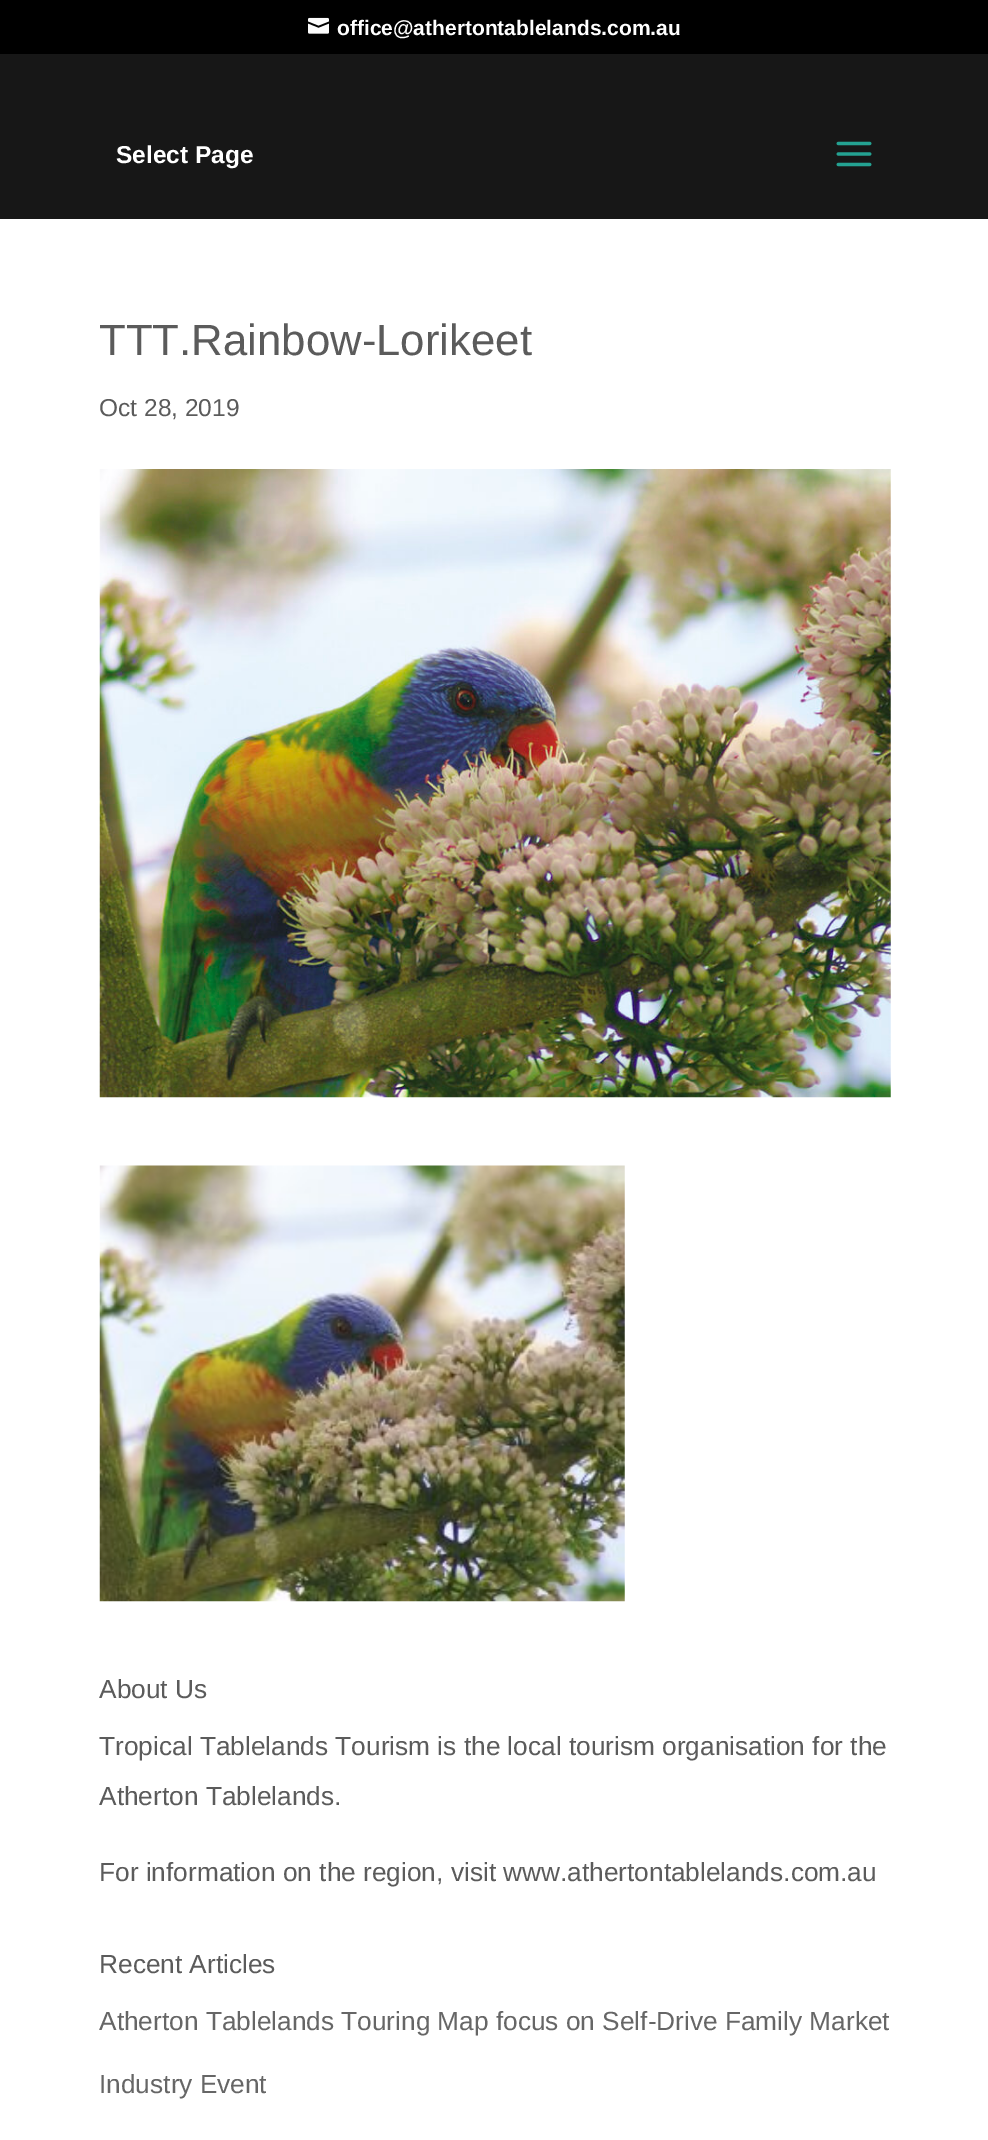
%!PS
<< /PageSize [988 2140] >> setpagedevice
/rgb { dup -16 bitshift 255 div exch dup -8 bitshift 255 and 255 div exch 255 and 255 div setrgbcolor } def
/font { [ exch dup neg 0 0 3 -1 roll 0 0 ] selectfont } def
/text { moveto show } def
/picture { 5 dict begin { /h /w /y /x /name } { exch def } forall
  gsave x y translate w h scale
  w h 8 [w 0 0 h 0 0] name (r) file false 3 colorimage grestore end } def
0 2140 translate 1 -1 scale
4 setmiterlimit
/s1 { /LiberationSans-Bold 21 font 16#FFFFFF rgb } def
/s2 { /LiberationSans-Bold 24.5 font 16#FFFFFF rgb } def
/s3 { /LiberationSans-Regular 43.75 font 16#5B5B5B rgb } def
/s4 { /LiberationSans-Regular 24.5 font 16#5B5B5B rgb } def
/s5 { /LiberationSans-Regular 26.25 font 16#5B5B5B rgb } def
/s6 { /LiberationSans-Regular 26.25 font 16#666666 rgb } def
16#FFFFFF rgb
0 0 988 2140 rectfill
16#000000 rgb
0 0 988 54 rectfill
(pic1.raw) 308 17 21 17 picture
s1
(office@athertontablelands.com.au) 337 35 text
16#171717 rgb
0 54 988 165 rectfill
s2
(Select Page) 116 163 text
(pic2.raw) 836 141 36 26 picture
s3
(TTT.Rainbow-Lorikeet) 99 355 text
s4
(Oct 28, 2019) 99 416 text
(pic3.raw) 99 469 792 629 picture
(pic4.raw) 99 1165 526 437 picture
s5
(About Us) 99 1698 text
(Tropical Tablelands Tourism is the local tourism organisation for the) 99 1755 text
(Atherton Tablelands.) 99 1805 text
(For information on the region, visit www.athertontablelands.com.au) 99 1881 text
(Recent Articles) 99 1973 text
s6
(Atherton Tablelands Touring Map focus on Self-Drive Family Market) 99 2030 text
(Industry Event) 99 2093 text
showpage
